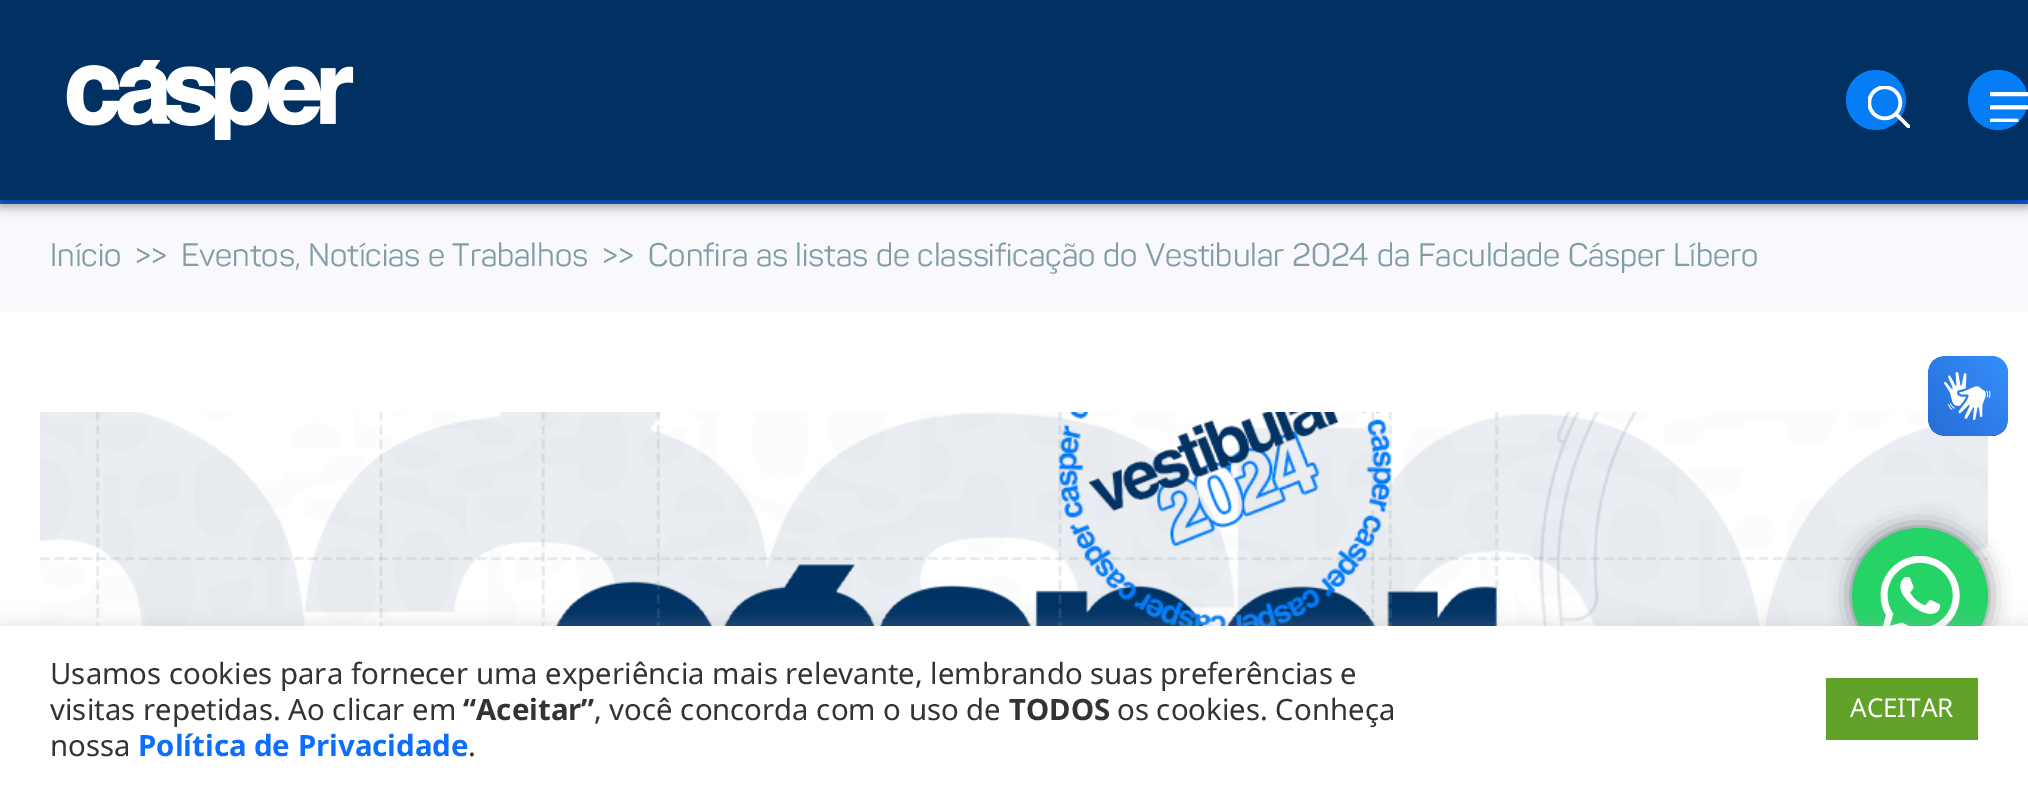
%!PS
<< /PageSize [2028 790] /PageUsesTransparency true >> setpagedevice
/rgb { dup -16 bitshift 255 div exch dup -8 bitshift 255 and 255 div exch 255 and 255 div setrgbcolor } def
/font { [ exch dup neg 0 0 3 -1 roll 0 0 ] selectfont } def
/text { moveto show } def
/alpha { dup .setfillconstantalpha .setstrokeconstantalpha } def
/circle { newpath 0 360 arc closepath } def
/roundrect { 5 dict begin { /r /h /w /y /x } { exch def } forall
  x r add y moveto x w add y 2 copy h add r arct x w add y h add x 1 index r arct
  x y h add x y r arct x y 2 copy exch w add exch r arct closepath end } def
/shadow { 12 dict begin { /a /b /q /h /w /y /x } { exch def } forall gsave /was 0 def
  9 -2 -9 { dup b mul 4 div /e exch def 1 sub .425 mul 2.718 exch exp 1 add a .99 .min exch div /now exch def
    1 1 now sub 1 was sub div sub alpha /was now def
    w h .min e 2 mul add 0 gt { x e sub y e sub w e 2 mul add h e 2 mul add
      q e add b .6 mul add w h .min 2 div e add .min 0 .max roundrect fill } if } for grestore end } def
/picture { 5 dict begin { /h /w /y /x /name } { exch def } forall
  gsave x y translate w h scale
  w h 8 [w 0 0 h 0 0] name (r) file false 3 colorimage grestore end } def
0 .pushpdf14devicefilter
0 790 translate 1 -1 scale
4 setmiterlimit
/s1 { /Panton-Regular 32 font 16#829DA6 rgb } def
/s2 { /NotoSans-Regular 29.35 font 16#333333 rgb } def
/s3 { /NotoSans-Bold 29.35 font 16#333333 rgb } def
/s4 { /NotoSans-Bold 29.35 font 16#0D6EFD rgb } def
/s5 { /NotoSans-Regular 26 font 16#FFFFFF rgb } def
16#FFFFFF rgb
0 0 2028 790 rectfill
16#0D6EFD rgb
0 200 2028 4 rectfill
16#F8F8FD rgb
0 204 2028 108 rectfill
16#000000 rgb
0 6 2028 200 0 6 0.4 shadow
16#003162 rgb
0 0 2028 200 rectfill
(pic1.raw) 66 60 288 80 picture
16#047DF6 rgb
1876 100 30 circle fill
(pic2.raw) 1868 86 42 42 picture
1998 100 30 circle fill
(pic3.raw) 1990 92 38 30 picture
s1
(Início) 50 266 text
(>>) 135 266 text
(Eventos, Notícias e Trabalhos) 181 266 text
(>>) 602 266 text
(Confira as listas de classificação do Vestibular 2024 da Faculdade Cásper Líbero) 648 266 text
(pic6.raw) 40 412 1948 214 picture
(pic4.raw) 1928 356 80 80 picture
(pic5.raw) 1928 356 80 80 picture
16#000000 rgb
1852 528 136 136 68 11 0.5 shadow
16#25D366 rgb
1920 596 68 circle fill
(pic7.raw) 1880 556 80 70 picture
16#ACABAB rgb
0 624 2028 164 0 10 0.3 shadow
16#FFFFFF rgb
0 626 2028 164 rectfill
s2
(Usamos cookies para fornecer uma experiência mais relevante, lembrando suas preferências e) 50 684 text
(visitas repetidas. Ao clicar em) 50 720 text
s3
(“Aceitar”) 463 720 text
s2
(, você concorda com o uso de) 594 720 text
s3
(TODOS) 1009 720 text
s2
(os cookies. Conheça) 1117 720 text
(nossa) 50 756 text
s4
(Política de Privacidade) 138 756 text
s2
(.) 468 756 text
16#61A229 rgb
1826 678 152 62 rectfill
s5
(ACEITAR) 1850 717 text
.poppdf14devicefilter showpage
